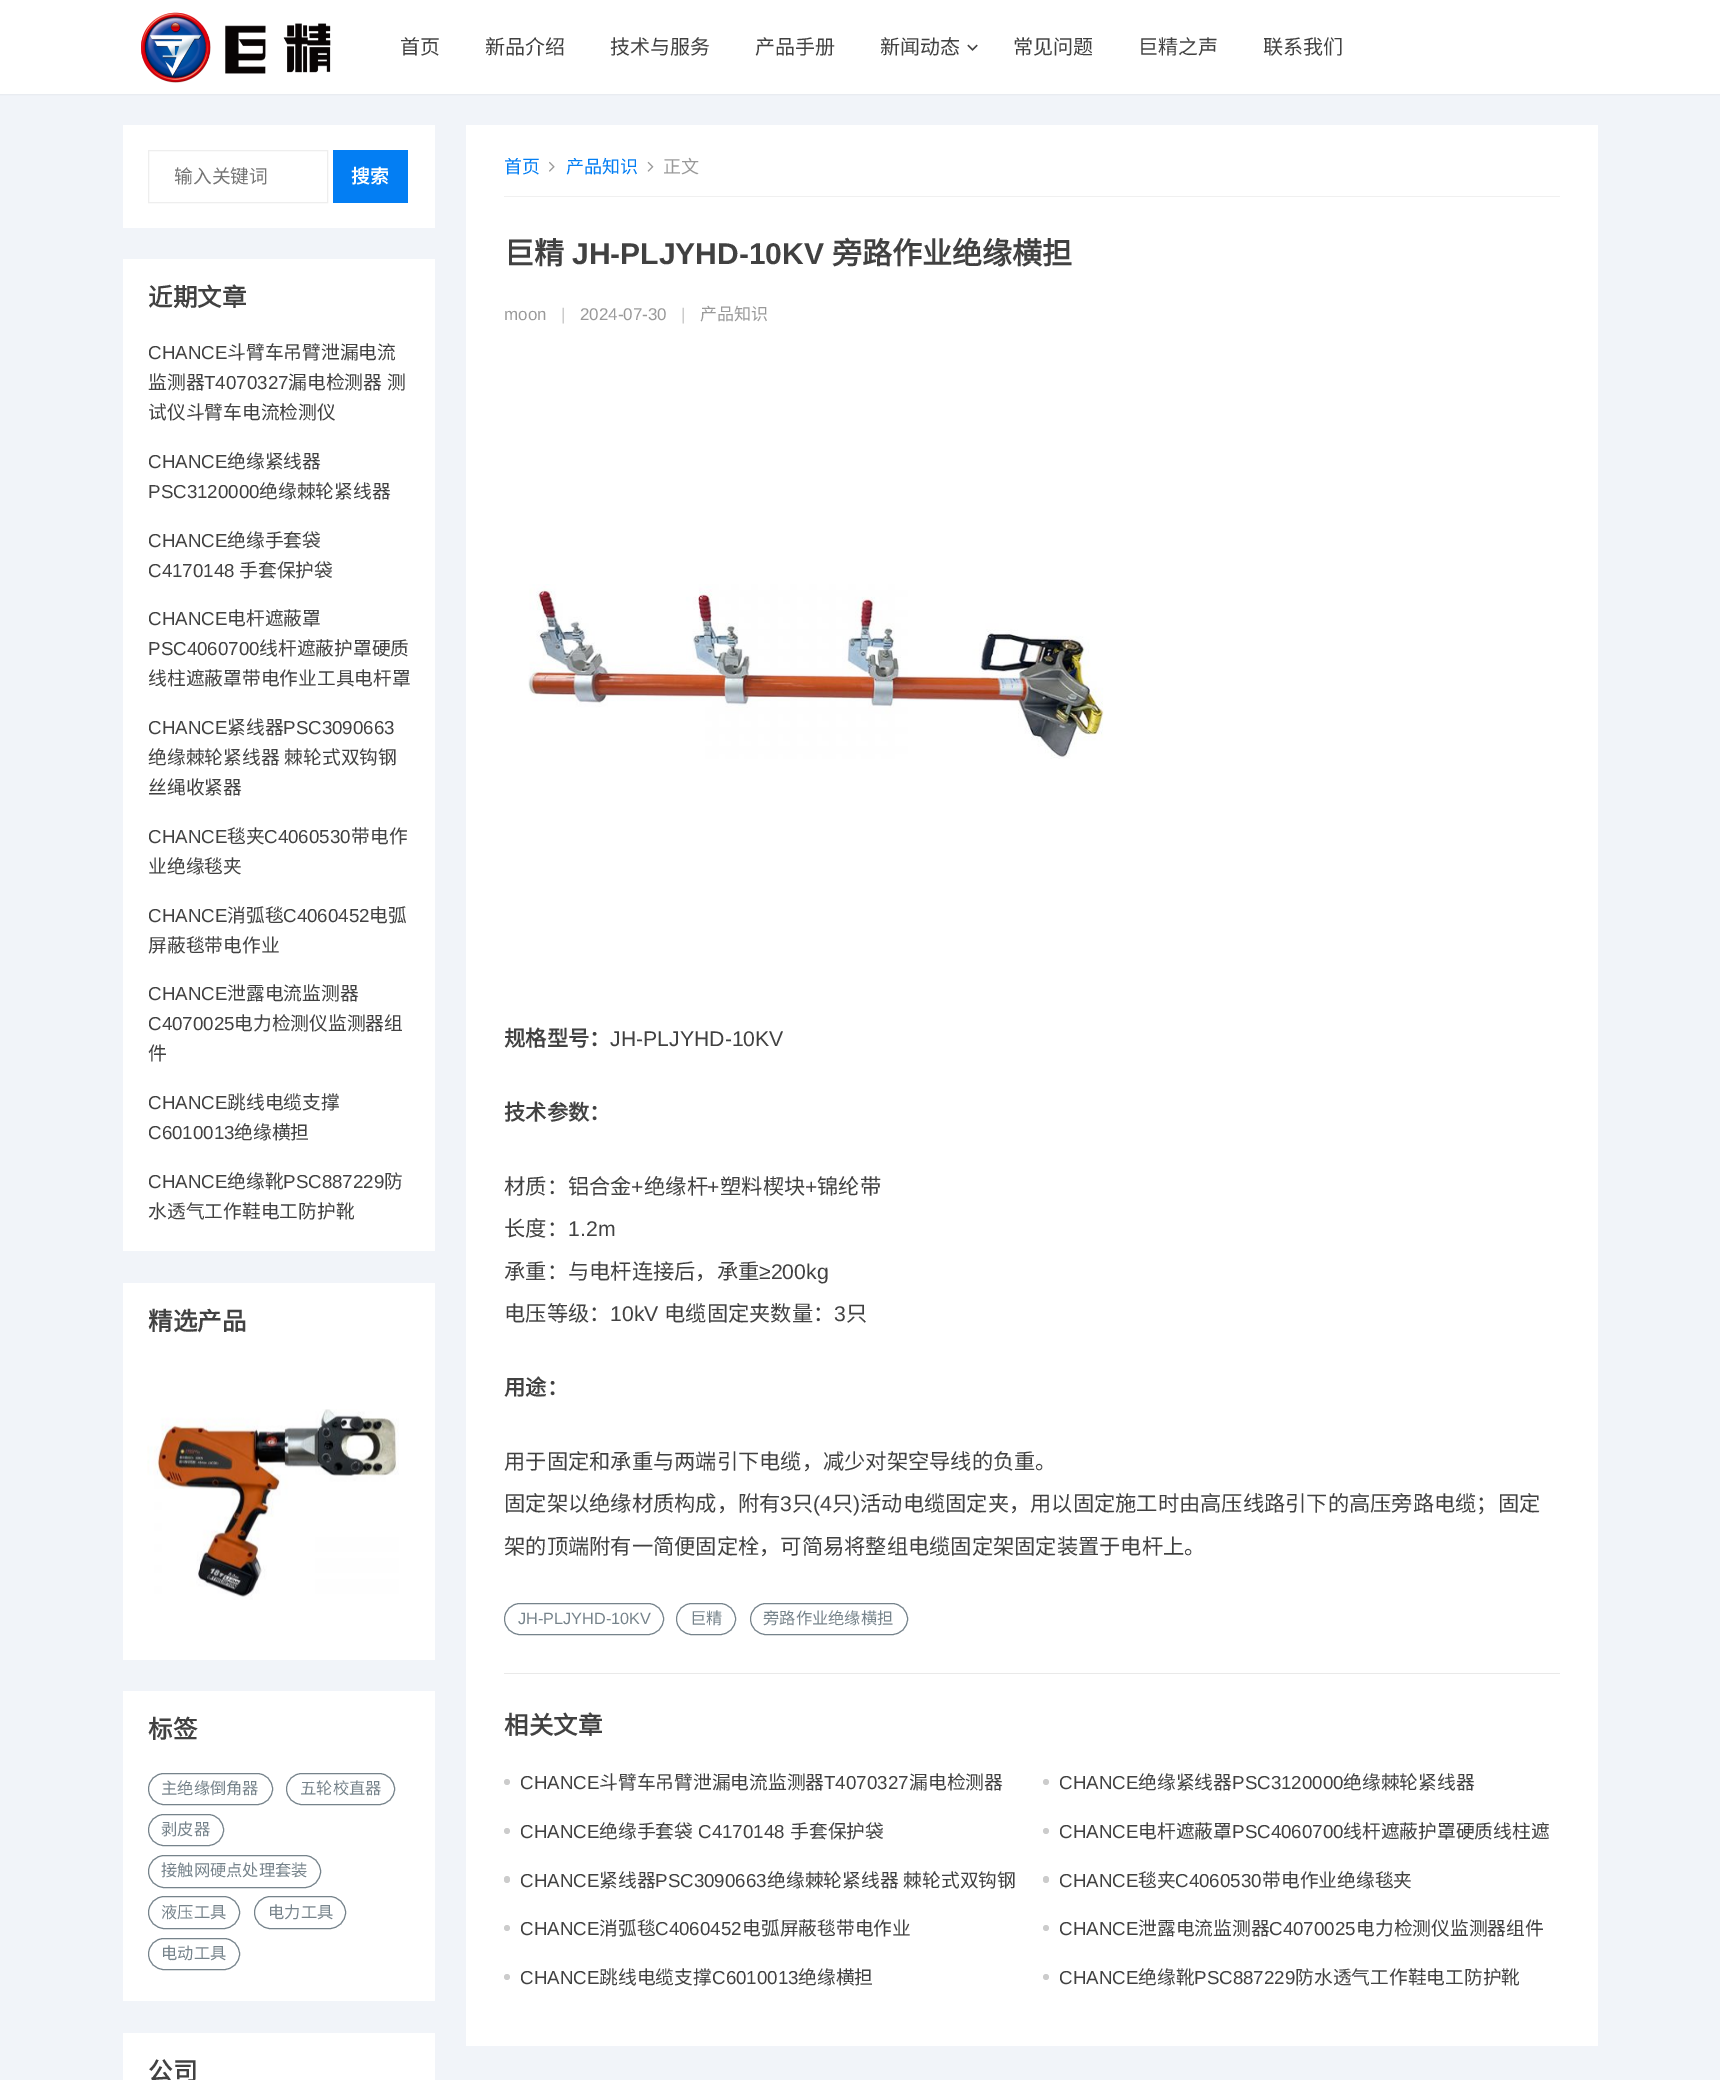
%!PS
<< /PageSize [1720 2080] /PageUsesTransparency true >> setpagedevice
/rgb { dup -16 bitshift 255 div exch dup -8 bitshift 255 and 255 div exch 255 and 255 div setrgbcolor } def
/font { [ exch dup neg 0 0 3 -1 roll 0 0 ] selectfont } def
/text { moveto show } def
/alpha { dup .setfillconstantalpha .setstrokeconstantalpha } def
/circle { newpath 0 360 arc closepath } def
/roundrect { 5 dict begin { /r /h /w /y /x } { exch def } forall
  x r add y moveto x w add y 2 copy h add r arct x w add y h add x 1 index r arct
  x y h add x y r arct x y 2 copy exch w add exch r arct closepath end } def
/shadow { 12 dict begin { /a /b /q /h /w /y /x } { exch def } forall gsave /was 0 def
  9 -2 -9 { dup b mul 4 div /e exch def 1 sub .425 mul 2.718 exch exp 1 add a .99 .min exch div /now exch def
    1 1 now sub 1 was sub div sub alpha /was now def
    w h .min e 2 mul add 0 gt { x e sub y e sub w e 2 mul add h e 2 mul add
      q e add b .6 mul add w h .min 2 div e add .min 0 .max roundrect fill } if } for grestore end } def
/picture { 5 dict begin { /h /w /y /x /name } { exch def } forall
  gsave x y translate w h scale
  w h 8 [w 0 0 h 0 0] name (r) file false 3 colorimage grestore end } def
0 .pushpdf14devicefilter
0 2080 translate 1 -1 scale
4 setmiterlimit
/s1 { /NotoSansCJKSC-Regular 20 font 16#414141 rgb } def
/s2 { /NotoSansCJKSC-Regular 18.75 font 16#757575 rgb } def
/s3 { /NotoSansCJKSC-Bold 18.75 font 16#FFFFFF rgb } def
/s4 { /NotoSansCJKSC-Bold 24.5 font 16#414141 rgb } def
/s5 { /LiberationSans-Regular 18.75 font 16#414141 rgb } def
/s6 { /NotoSansCJKSC-Regular 18.75 font 16#414141 rgb } def
/s7 { /NotoSansCJKSC-Regular 16.25 font 16#76838B rgb } def
/s8 { /NotoSansCJKSC-Regular 18 font 16#037EF3 rgb } def
/s9 { /NotoSansCJKSC-Regular 18 font 16#999999 rgb } def
/s10 { /NotoSansCJKSC-Bold 30 font 16#414141 rgb } def
/s11 { /LiberationSans-Bold 30 font 16#414141 rgb } def
/s12 { /LiberationSans-Regular 17 font 16#999999 rgb } def
/s13 { /LiberationSans-Regular 17 font 16#CCCCCC rgb } def
/s14 { /NotoSansCJKSC-Regular 17 font 16#999999 rgb } def
/s15 { /NotoSansCJKSC-Bold 21.25 font 16#414141 rgb } def
/s16 { /LiberationSans-Regular 21.25 font 16#414141 rgb } def
/s17 { /NotoSansCJKSC-Regular 21.25 font 16#414141 rgb } def
/s18 { /LiberationSans-Regular 16.25 font 16#76838B rgb } def
16#F1F4F9 rgb
0 0 1720 2080 rectfill
16#000000 rgb
0 0 1720 94 0 1 0.1 shadow
16#FFFFFF rgb
0 0 1720 94 rectfill
(pic1.raw) 141 12 190 71 picture
s1
(首页) 400 54 text
(新品介绍) 485 54 text
(技术与服务) 610 54 text
(产品手册) 755 54 text
(新闻动态) 880 54 text
(pic2.raw) 967 44 11 7 picture
(常见问题) 1013 54 text
(巨精之声) 1138 54 text
(联系我们) 1263 54 text
16#FFFFFF rgb
123 125 312 103 rectfill
16#EEEEEE rgb
148.5 150.5 179 52 rectstroke
s2
(输入关键词) 174 183 text
16#037EF3 rgb
333 150 75 53 rectfill
s3
(搜索) 351 183 text
123 259 312 992 rectfill
s4
(近期文章) 148 306 text
s5
(CHANCE) 148 359 text
s6
(斗臂车吊臂泄漏电流) 227 359 text
(监测器) 148 389 text
s5
(T4070327) 204 389 text
/NotoSansCJKSC-Regular 18.75 font
288 389 moveto 1 0 32 (漏电检测器 测) widthshow
(试仪斗臂车电流检测仪) 148 419 text
s5
(CHANCE) 148 468 text
s6
(绝缘紧线器) 227 468 text
s5
(PSC3120000) 148 498 text
s6
(绝缘棘轮紧线器) 259 498 text
s5
(CHANCE) 148 547 text
s6
(绝缘手套袋) 227 547 text
s5
(C4170148) 148 577 text
s6
(手套保护袋) 239 577 text
s5
(CHANCE) 148 625 text
s6
(电杆遮蔽罩) 227 625 text
s5
(PSC4060700) 148 655 text
s6
(线杆遮蔽护罩硬质) 259 655 text
(线柱遮蔽罩带电作业工具电杆罩) 148 685 text
s5
(CHANCE) 148 734 text
s6
(紧线器) 227 734 text
s5
(PSC3090663) 283 734 text
/NotoSansCJKSC-Regular 18.75 font
148 764 moveto 1 0 32 (绝缘棘轮紧线器 棘轮式双钩钢) widthshow
(丝绳收紧器) 148 794 text
s5
(CHANCE) 148 843 text
s6
(毯夹) 227 843 text
s5
(C4060530) 264 843 text
s6
(带电作) 351 843 text
(业绝缘毯夹) 148 873 text
s5
(CHANCE) 148 922 text
s6
(消弧毯) 227 922 text
s5
(C4060452) 283 922 text
s6
(电弧) 369 922 text
(屏蔽毯带电作业) 148 952 text
s5
(CHANCE) 148 1000 text
s6
(泄露电流监测器) 227 1000 text
s5
(C4070025) 148 1030 text
s6
(电力检测仪监测器组) 234 1030 text
(件) 148 1060 text
s5
(CHANCE) 148 1109 text
s6
(跳线电缆支撑) 227 1109 text
s5
(C6010013) 148 1139 text
s6
(绝缘横担) 234 1139 text
s5
(CHANCE) 148 1188 text
s6
(绝缘靴) 227 1188 text
s5
(PSC887229) 283 1188 text
s6
(防) 384 1188 text
(水透气工作鞋电工防护靴) 148 1218 text
16#FFFFFF rgb
123 1283 312 377 rectfill
s4
(精选产品) 148 1330 text
(pic3.raw) 147 1409 252 191 picture
16#FFFFFF rgb
123 1691 312 310 rectfill
s4
(标签) 148 1738 text
16#76838B rgb
148.5 1773.5 124 31 15.5 roundrect stroke
s7
(主绝缘倒角器) 161 1794 text
286.5 1773.5 108 31 15.5 roundrect stroke
(五轮校直器) 300 1794 text
148.5 1814.5 75 31 15.5 roundrect stroke
(剥皮器) 161 1835 text
148.5 1855.5 172 32 16 roundrect stroke
(接触网硬点处理套装) 161 1876 text
148.5 1896.5 91 32 16 roundrect stroke
(液压工具) 161 1918 text
254.5 1896.5 91 32 16 roundrect stroke
(电力工具) 268 1918 text
148.5 1938.5 91 31 15.5 roundrect stroke
(电动工具) 161 1959 text
16#FFFFFF rgb
123 2033 312 47 rectfill
s4
(公司) 148 2080 text
16#FFFFFF rgb
466 125 1132 1921 rectfill
16#F0F0F0 rgb
504 196 1056 1 rectfill
s8
(首页) 504 173 text
(pic4.raw) 549 161 6 11 picture
(产品知识) 566 173 text
(pic5.raw) 647 161 7 11 picture
s9
(正文) 663 173 text
s10
(巨精) 504 264 text
s11
(JH-PLJYHD-10KV) 572 264 text
s10
(旁路作业绝缘横担) 832 264 text
s12
(moon) 504 320 text
s13
(|) 561 320 text
s12
(2024-07-30) 580 320 text
s13
(|) 681 320 text
s14
(产品知识) 700 320 text
(pic6.raw) 528 584 576 175 picture
s15
(规格型号：) 504 1046 text
s16
(JH-PLJYHD-10KV) 610 1046 text
s15
(技术参数：) 504 1120 text
s17
(材质：铝合金) 504 1194 text
s16
(+) 631 1194 text
s17
(绝缘杆) 644 1194 text
s16
(+) 707 1194 text
s17
(塑料楔块) 720 1194 text
s16
(+) 805 1194 text
s17
(锦纶带) 817 1194 text
(长度：) 504 1236 text
s16
(1.2m) 568 1236 text
s17
(承重：与电杆连接后，承重) 504 1279 text
s16
(≥200kg) 759 1279 text
s17
(电压等级：) 504 1321 text
s16
(10kV) 610 1321 text
s17
(电缆固定夹数量：) 664 1321 text
s16
(3) 834 1321 text
s17
(只) 846 1321 text
s15
(用途：) 504 1395 text
s17
(用于固定和承重与两端引下电缆，减少对架空导线的负重。) 504 1469 text
(固定架以绝缘材质构成，附有) 504 1511 text
s16
(3) 780 1511 text
s17
(只) 792 1511 text
s16
(\(4) 813 1511 text
s17
(只) 832 1511 text
s16
(\)) 853 1511 text
s17
(活动电缆固定夹，用以固定施工时由高压线路引下的高压旁路电缆；固定) 860 1511 text
(架的顶端附有一简便固定栓，可简易将整组电缆固定架固定装置于电杆上。) 504 1554 text
16#76838B rgb
504.5 1603.5 159 31 15.5 roundrect stroke
s18
(JH-PLJYHD-10KV) 518 1624 text
676.5 1603.5 59 31 15.5 roundrect stroke
s7
(巨精) 690 1624 text
750.5 1603.5 157 31 15.5 roundrect stroke
(旁路作业绝缘横担) 763 1624 text
16#E9E9E9 rgb
504 1673 1056 1 rectfill
s4
(相关文章) 504 1734 text
16#CCCCCC rgb
507 1782 3 circle fill
s5
(CHANCE) 520 1789 text
s6
(斗臂车吊臂泄漏电流监测器) 599 1789 text
s5
(T4070327) 824 1789 text
s6
(漏电检测器) 909 1789 text
16#CCCCCC rgb
1046 1782 3 circle fill
s5
(CHANCE) 1059 1789 text
s6
(绝缘紧线器) 1138 1789 text
s5
(PSC3120000) 1232 1789 text
s6
(绝缘棘轮紧线器) 1343 1789 text
16#CCCCCC rgb
507 1831 3 circle fill
s5
(CHANCE) 520 1838 text
s6
(绝缘手套袋) 599 1838 text
s5
(C4170148) 698 1838 text
s6
(手套保护袋) 790 1838 text
16#CCCCCC rgb
1046 1831 3 circle fill
s5
(CHANCE) 1059 1838 text
s6
(电杆遮蔽罩) 1138 1838 text
s5
(PSC4060700) 1232 1838 text
s6
(线杆遮蔽护罩硬质线柱遮) 1343 1838 text
16#CCCCCC rgb
504 1876 6 7 3 roundrect fill
s5
(CHANCE) 520 1887 text
s6
(紧线器) 599 1887 text
s5
(PSC3090663) 655 1887 text
/NotoSansCJKSC-Regular 18.75 font
767 1887 moveto 1 0 32 (绝缘棘轮紧线器 棘轮式双钩钢) widthshow
16#CCCCCC rgb
1043 1876 6 7 3 roundrect fill
s5
(CHANCE) 1059 1887 text
s6
(毯夹) 1138 1887 text
s5
(C4060530) 1175 1887 text
s6
(带电作业绝缘毯夹) 1262 1887 text
16#CCCCCC rgb
507 1928 3 circle fill
s5
(CHANCE) 520 1935 text
s6
(消弧毯) 599 1935 text
s5
(C4060452) 655 1935 text
s6
(电弧屏蔽毯带电作业) 742 1935 text
16#CCCCCC rgb
1046 1928 3 circle fill
s5
(CHANCE) 1059 1935 text
s6
(泄露电流监测器) 1138 1935 text
s5
(C4070025) 1269 1935 text
s6
(电力检测仪监测器组件) 1356 1935 text
16#CCCCCC rgb
507 1977 3 circle fill
s5
(CHANCE) 520 1984 text
s6
(跳线电缆支撑) 599 1984 text
s5
(C6010013) 712 1984 text
s6
(绝缘横担) 798 1984 text
16#CCCCCC rgb
1046 1977 3 circle fill
s5
(CHANCE) 1059 1984 text
s6
(绝缘靴) 1138 1984 text
s5
(PSC887229) 1194 1984 text
s6
(防水透气工作鞋电工防护靴) 1295 1984 text
.poppdf14devicefilter showpage
